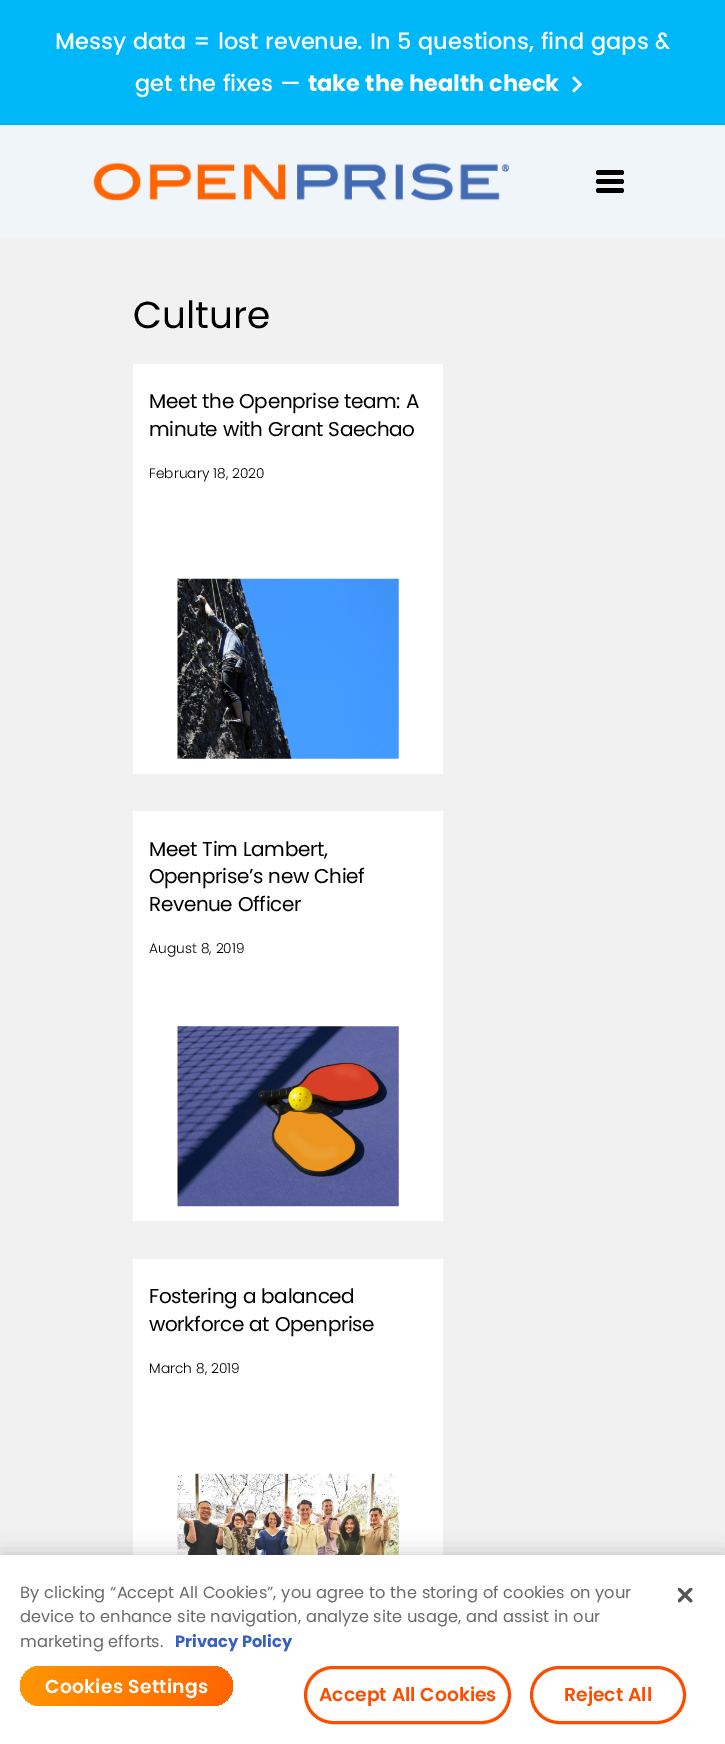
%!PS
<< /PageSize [725 1744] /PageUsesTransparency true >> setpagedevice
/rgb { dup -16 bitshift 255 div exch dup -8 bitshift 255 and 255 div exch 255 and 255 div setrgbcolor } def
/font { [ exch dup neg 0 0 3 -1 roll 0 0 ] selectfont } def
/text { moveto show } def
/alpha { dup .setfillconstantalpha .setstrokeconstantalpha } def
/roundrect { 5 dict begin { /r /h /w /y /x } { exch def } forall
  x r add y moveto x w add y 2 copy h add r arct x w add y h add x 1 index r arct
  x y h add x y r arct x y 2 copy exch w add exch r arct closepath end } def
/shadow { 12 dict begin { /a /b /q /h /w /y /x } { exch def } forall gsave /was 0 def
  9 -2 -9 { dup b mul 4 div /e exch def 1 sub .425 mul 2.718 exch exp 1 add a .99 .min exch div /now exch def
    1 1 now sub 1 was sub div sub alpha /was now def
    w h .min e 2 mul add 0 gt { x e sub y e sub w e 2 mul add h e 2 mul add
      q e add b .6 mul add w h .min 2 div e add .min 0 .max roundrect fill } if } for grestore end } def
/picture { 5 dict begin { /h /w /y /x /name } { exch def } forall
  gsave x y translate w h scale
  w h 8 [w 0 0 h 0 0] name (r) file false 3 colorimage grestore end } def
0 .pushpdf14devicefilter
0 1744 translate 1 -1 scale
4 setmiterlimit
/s1 { /Poppins-Medium 22.5 font 16#FFFFFF rgb } def
/s2 { /Poppins-Bold 22.5 font 16#FFFFFF rgb } def
/s3 { /Poppins-Regular 37.5 font 16#000000 rgb } def
/s4 { /Poppins-Light 13.75 font 16#000000 rgb } def
/s5 { /Poppins-Regular 16.25 font 16#696969 rgb } def
/s6 { /Poppins-Bold 16.25 font 16#3860BE rgb } def
/s7 { /Poppins-SemiBold 18.75 font 16#FD4D00 rgb } def
16#F1F1F2 rgb
0 0 725 1744 rectfill
16#00B8F9 rgb
0 0 725 125 rectfill
s1
(Messy data = lost revenue. In 5 questions, find gaps &) 55 49 text
(get the fixes —) 135 91 text
s2
(take the health check) 308 91 text
(pic1.raw) 572 76 10 17 picture
16#F0F5FA rgb
0 125 725 113 rectfill
(pic2.raw) 93 162 416 39 picture
16#000000 rgb
596 179 28 5 2.5 roundrect fill
596 170 28 5 2.5 roundrect fill
596 188 28 5 2.5 roundrect fill
s3
(Culture) 133 328 text
16#FFFFFF rgb
133 364 310 410 rectfill
/Poppins-Regular 20 font
16#000000 rgb
149 408 moveto -0.4 0 (Meet the Openprise team: A) ashow
149 436 moveto -0.4 0 (minute with Grant Saechao) ashow
s4
(February 18, 2020) 149 478 text
(pic3.raw) 177 578 222 181 picture
16#FFFFFF rgb
133 811 310 410 rectfill
/Poppins-Regular 20 font
16#000000 rgb
149 856 moveto -0.4 0 (Meet Tim Lambert,) ashow
149 883 moveto -0.4 0 (Openprise’s new Chief) ashow
149 911 moveto -0.4 0 (Revenue Officer) ashow
s4
(August 8, 2019) 149 953 text
(pic4.raw) 177 1026 222 181 picture
16#FFFFFF rgb
133 1259 310 296 rectfill
/Poppins-Regular 20 font
16#000000 rgb
149 1303 moveto -0.4 0 (Fostering a balanced) ashow
149 1331 moveto -0.4 0 (workforce at Openprise) ashow
s4
(March 8, 2019) 149 1373 text
(pic5.raw) 177 1473 222 82 picture
0 1555 725 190 0 11 0.2 shadow
16#FFFFFF rgb
0 1555 725 189 rectfill
s5
(By clicking “Accept All Cookies”, you agree to the storing of cookies on your) 20 1598 text
(device to enhance site navigation, analyze site usage, and assist in our) 20 1622 text
(marketing efforts.) 20 1647 text
s6
(Privacy Policy) 175 1647 text
gsave 20 1666 213 40 20 roundrect clip newpath
<< /ShadingType 2 /ColorSpace /DeviceRGB /Coords [21 1664 232 1709] /Extend [true true] /Function << /FunctionType 2 /Domain [0 1] /C0 [1 0.588 0] /C1 [1 0.392 0] /N 1 >> >> shfill grestore
/Poppins-SemiBold 18.75 font
16#FFFFFF rgb
45 1693 moveto 0.25 0 (Cookies Settings) ashow
16#FD4D00 rgb
3 setlinewidth
305.5 1667.5 204 55 27.5 roundrect stroke
(Accept All Cookies) 319 1701 text
531.5 1667.5 153 55 27.5 roundrect stroke
(Reject All) 564 1701 text
(pic6.raw) 678 1588 15 15 picture
.poppdf14devicefilter showpage
